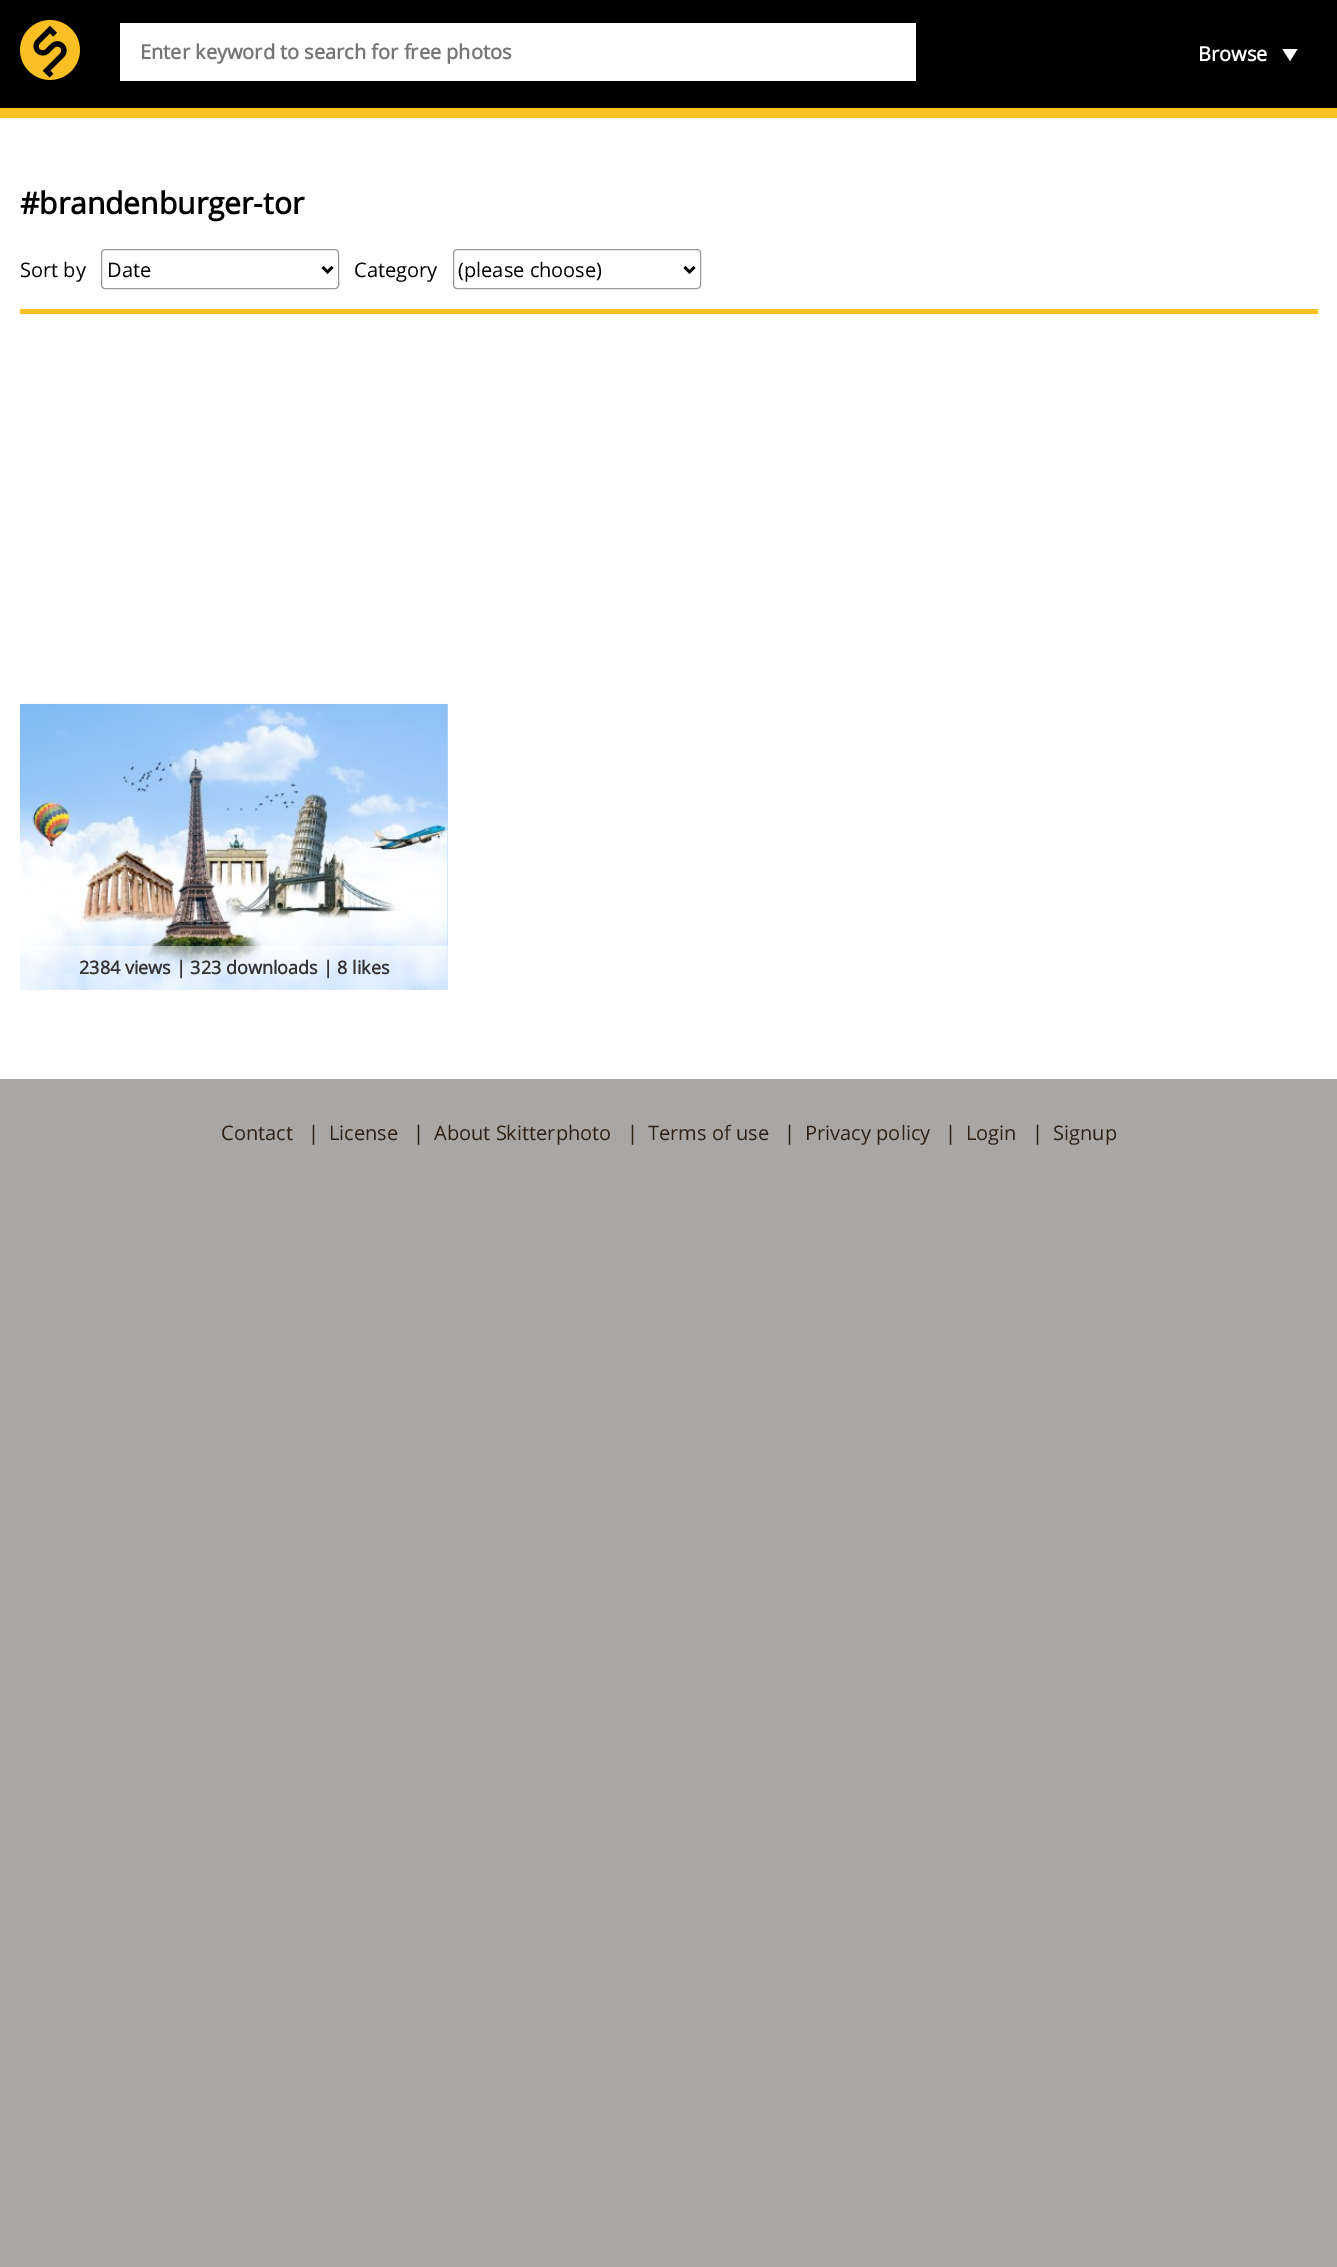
%!PS
<< /PageSize [1337 2267] /PageUsesTransparency true >> setpagedevice
/rgb { dup -16 bitshift 255 div exch dup -8 bitshift 255 and 255 div exch 255 and 255 div setrgbcolor } def
/font { [ exch dup neg 0 0 3 -1 roll 0 0 ] selectfont } def
/text { moveto show } def
/alpha { dup .setfillconstantalpha .setstrokeconstantalpha } def
/roundrect { 5 dict begin { /r /h /w /y /x } { exch def } forall
  x r add y moveto x w add y 2 copy h add r arct x w add y h add x 1 index r arct
  x y h add x y r arct x y 2 copy exch w add exch r arct closepath end } def
/picture { 5 dict begin { /h /w /y /x /name } { exch def } forall
  gsave x y translate w h scale
  w h 8 [w 0 0 h 0 0] name (r) file false 3 colorimage grestore end } def
0 .pushpdf14devicefilter
0 2267 translate 1 -1 scale
4 setmiterlimit
/s1 { /OpenSans-Bold 20 font 16#757575 rgb } def
/s2 { /OpenSans-Bold 20 font 16#FFFFFF rgb } def
/s3 { /OpenSans-Bold 30 font 16#000000 rgb } def
/s4 { /OpenSans-Regular 20 font 16#000000 rgb } def
/s5 { /OpenSans-Bold 18 font 16#333333 rgb } def
/s6 { /OpenSans-Regular 20 font 16#2E2014 rgb } def
16#A8A7A5 rgb
0 0 1337 2267 rectfill
16#000000 rgb
0 0 1337 108 rectfill
16#FCC021 rgb
0 108 1337 10 rectfill
(pic1.raw) 20 20 60 60 picture
16#FFFFFF rgb
120 23 796 58 rectfill
s1
(Enter keyword to search for free photos) 140 59 text
s2
(Browse) 1198 61 text
1282.5 49 moveto 1297.5 49 lineto 1290 61 lineto closepath fill
0 118 1337 961 rectfill
s3
(#brandenburger-tor) 20 214 text
s4
(Sort by) 20 277 text
16#999999 rgb
101.5 249.5 237 39 3.5 roundrect stroke
16#000000 rgb
2.5 setlinewidth
322.5 267 moveto 327.5 272 lineto 332.5 267 lineto stroke
(Date) 107 277 text
(Category) 354 277 text
16#999999 rgb
1 setlinewidth
453.5 249.5 247 39 3.5 roundrect stroke
16#000000 rgb
2.5 setlinewidth
684.5 267 moveto 689.5 272 lineto 694.5 267 lineto stroke
(\(please choose\)) 458 277 text
16#FCC021 rgb
20 309 1298 5 rectfill
16#B8D6F5 rgb
447 704 1 286 rectfill
(pic2.raw) 20 703 428 287 picture
0.5 alpha
16#FFFFFF rgb
20 946 428 44 rectfill
1 alpha
s5
(2384 views | 323 downloads | 8 likes) 79 974 text
s6
(Contact) 221 1140 text
(|) 308 1140 text
(License) 329 1140 text
(|) 413 1140 text
(About Skitterphoto) 434 1140 text
(|) 627 1140 text
(Terms of use) 648 1140 text
(|) 784 1140 text
(Privacy policy) 805 1140 text
(|) 945 1140 text
(Login) 966 1140 text
(|) 1032 1140 text
(Signup) 1053 1140 text
.poppdf14devicefilter showpage
